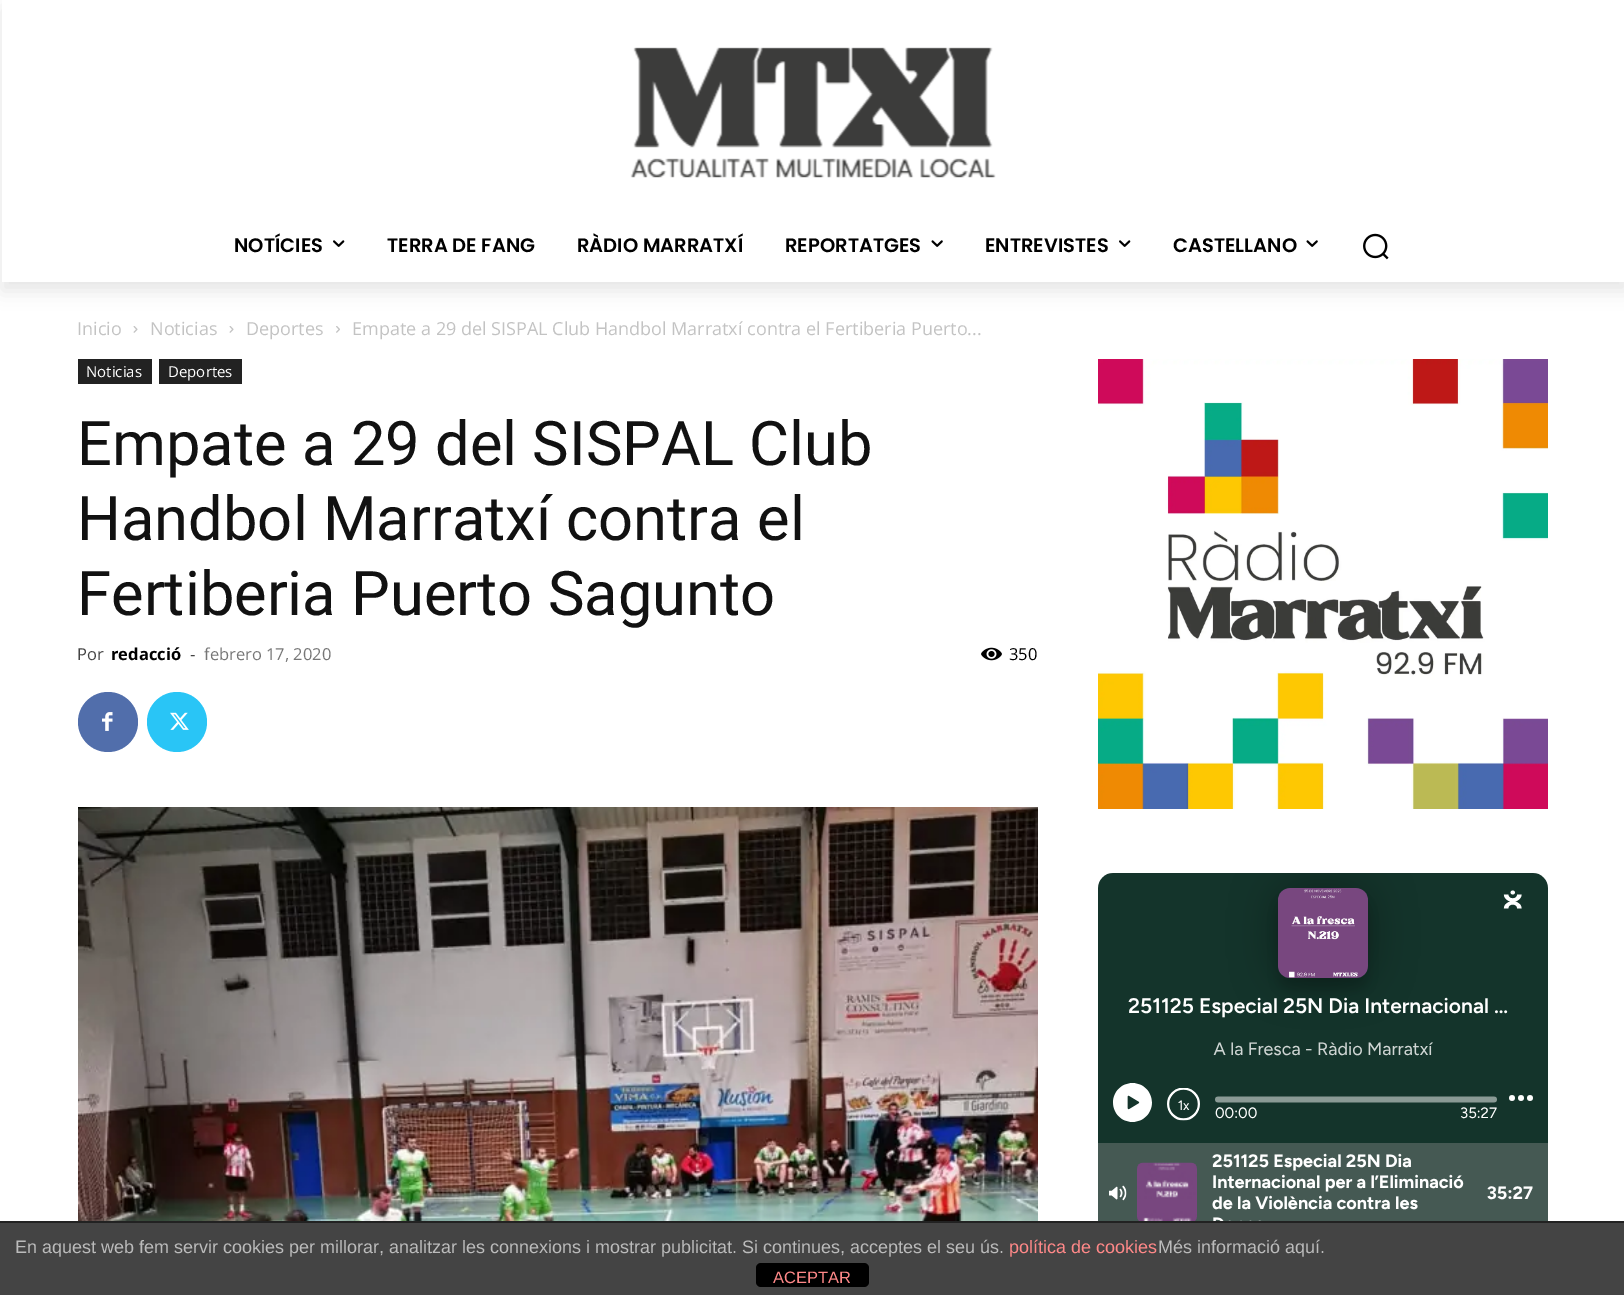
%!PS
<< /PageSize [1624 1295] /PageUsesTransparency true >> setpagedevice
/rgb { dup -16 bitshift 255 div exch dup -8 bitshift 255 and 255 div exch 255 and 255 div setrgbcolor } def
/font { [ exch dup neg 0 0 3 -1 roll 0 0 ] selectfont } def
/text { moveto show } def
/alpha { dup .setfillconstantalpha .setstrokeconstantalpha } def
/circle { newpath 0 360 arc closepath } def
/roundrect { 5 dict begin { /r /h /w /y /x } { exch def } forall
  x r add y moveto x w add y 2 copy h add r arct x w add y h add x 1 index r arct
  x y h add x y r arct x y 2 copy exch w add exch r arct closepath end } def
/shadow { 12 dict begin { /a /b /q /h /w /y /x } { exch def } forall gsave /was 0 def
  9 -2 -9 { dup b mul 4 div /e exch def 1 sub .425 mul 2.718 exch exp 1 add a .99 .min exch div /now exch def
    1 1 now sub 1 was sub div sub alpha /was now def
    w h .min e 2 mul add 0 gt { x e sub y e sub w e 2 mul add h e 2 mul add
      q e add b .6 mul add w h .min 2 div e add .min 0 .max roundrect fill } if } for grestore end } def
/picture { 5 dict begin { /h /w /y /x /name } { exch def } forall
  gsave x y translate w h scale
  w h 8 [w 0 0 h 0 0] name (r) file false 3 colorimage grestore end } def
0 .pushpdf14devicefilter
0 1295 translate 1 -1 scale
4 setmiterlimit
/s1 { /Poppins-SemiBold 19.5 font 16#000000 rgb } def
/s2 { /OpenSans-Regular 18 font 16#C3C3C3 rgb } def
/s3 { /OpenSans-Regular 15 font 16#FFFFFF rgb } def
/s4 { /Roboto-Regular 61.5 font 16#111111 rgb } def
/s5 { /OpenSans-Regular 16.5 font 16#444444 rgb } def
/s6 { /OpenSans-Bold 16.5 font 16#000000 rgb } def
/s7 { /OpenSans-Regular 16.5 font 16#767676 rgb } def
/s8 { /OpenSans-Regular 16.5 font 16#000000 rgb } def
/s9 { /LiberationSans-Regular 18 font 16#BBBBBB rgb } def
/s10 { /LiberationSans-Regular 18 font 16#FF8888 rgb } def
/s11 { /LiberationSans-Regular 16.5 font 16#FF8888 rgb } def
16#FFFFFF rgb
0 0 1624 1295 rectfill
(pic1.raw) 630 47 366 131 picture
gsave
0 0 moveto 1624 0 lineto 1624 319 lineto 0 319 lineto closepath 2 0 moveto 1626 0 lineto 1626 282 lineto 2 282 lineto closepath eoclip newpath
16#000000 rgb
2 9 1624 282 0 9 0.1 shadow
grestore
s1
(NOTÍCIES) 234 252 text
(pic2.raw) 333 240 12 7 picture
(TERRA DE FANG) 387 252 text
(RÀDIO MARRATXÍ) 577 252 text
(REPORTATGES) 785 252 text
(pic3.raw) 931 240 12 7 picture
(ENTREVISTES) 985 252 text
(pic2.raw) 1119 240 12 7 picture
(CASTELLANO) 1173 252 text
(pic3.raw) 1306 240 12 7 picture
(pic4.raw) 1363 233 26 27 picture
s2
(Inicio) 77 335 text
(pic5.raw) 133 326 5 7 picture
(Noticias) 150 335 text
(pic5.raw) 229 326 5 7 picture
(Deportes) 246 335 text
(pic6.raw) 336 326 4 7 picture
(Empate a 29 del SISPAL Club Handbol Marratxí contra el Fertiberia Puerto...) 352 335 text
16#222222 rgb
78 359 74 25 rectfill
s3
(Noticias) 86 377 text
16#222222 rgb
159 359 83 25 rectfill
s3
(Deportes) 168 377 text
s4
(Empate a 29 del SISPAL Club) 77 465 text
(Handbol Marratxí contra el) 77 540 text
(Fertiberia Puerto Sagunto) 77 615 text
s5
(Por) 77 660 text
s6
(redacció) 111 660 text
s5
(-) 190 660 text
s7
(febrero 17, 2020) 204 660 text
(pic7.raw) 981 647 21 14 picture
s8
(350) 1009 660 text
16#516EAB rgb
108 722 30 circle fill
(pic8.raw) 102 712 11 19 picture
16#29C5F6 rgb
177 722 30 circle fill
(pic9.raw) 170 712 19 18 picture
(pic10.raw) 78 807 960 414 picture
(pic11.raw) 1098 359 450 450 picture
(pic12.raw) 1098 873 450 348 picture
16#444444 rgb
0 1223 1624 72 rectfill
16#222222 rgb
0 1221 1624 2 rectfill
s9
(En aquest web fem servir cookies per millorar, analitzar les connexions i mostrar publicitat. Si continues, acceptes el seu ús.) 15 1253 text
s10
(política de cookies) 1009 1253 text
s9
(Més informació aquí.) 1158 1253 text
16#000000 rgb
756 1263 113 24 5 roundrect fill
s11
(ACEPTAR) 773 1283 text
.poppdf14devicefilter showpage
